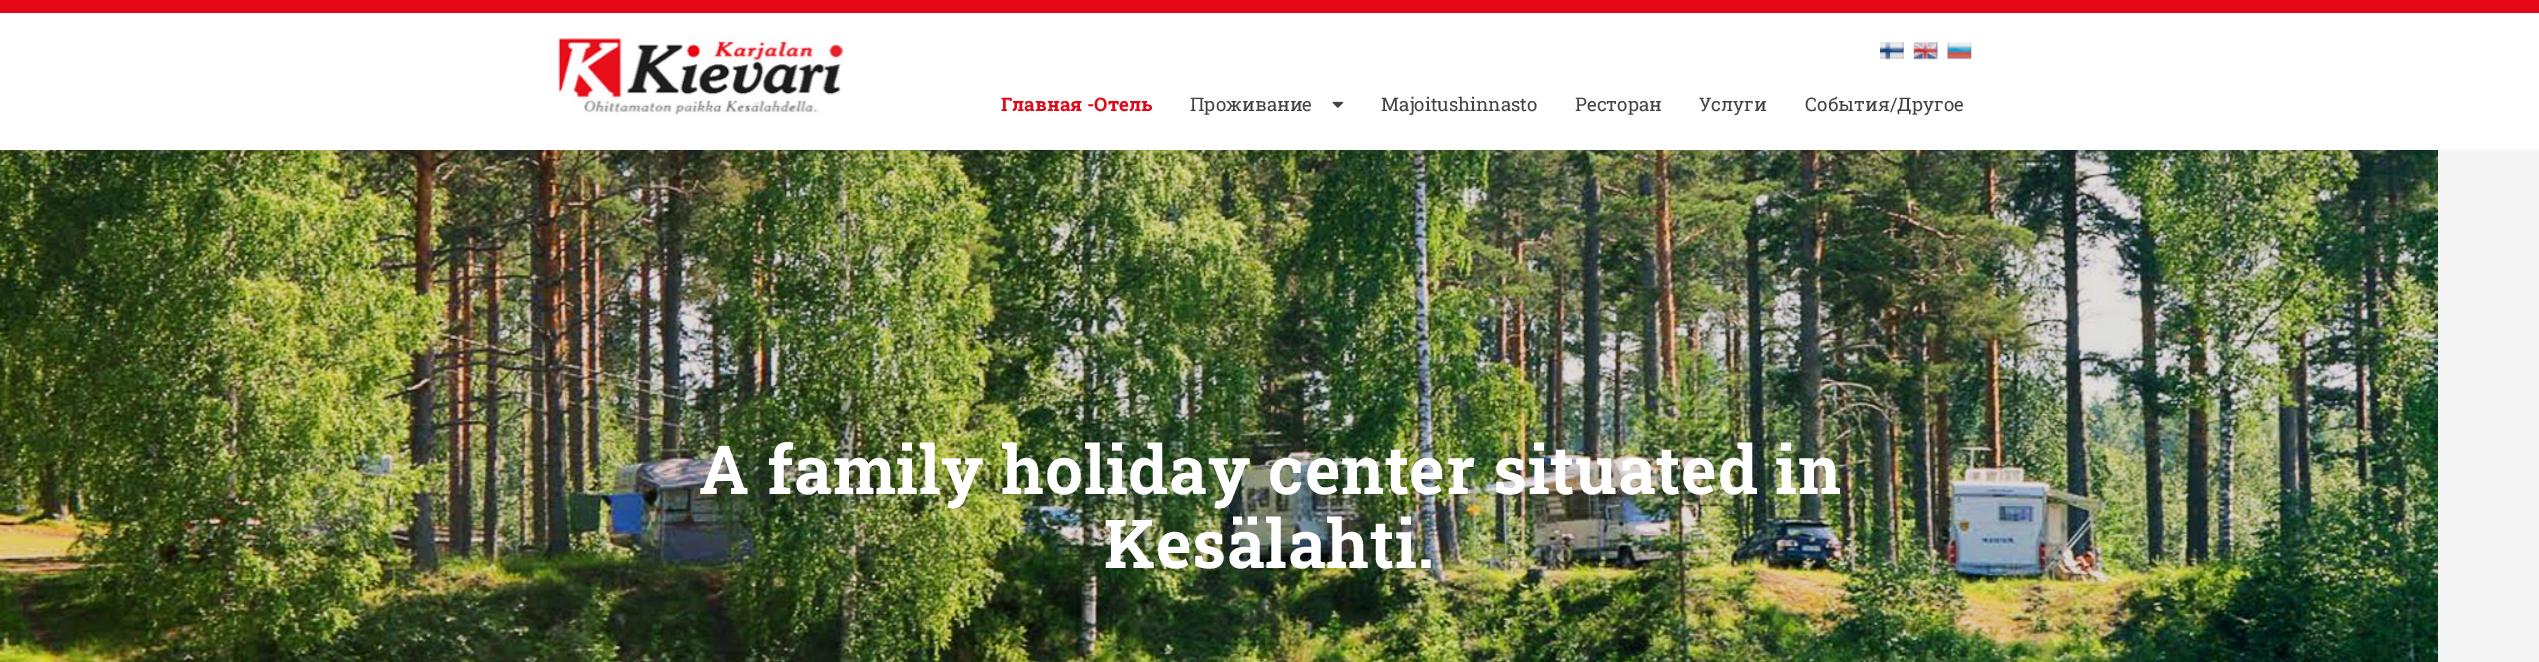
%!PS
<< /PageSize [2539 662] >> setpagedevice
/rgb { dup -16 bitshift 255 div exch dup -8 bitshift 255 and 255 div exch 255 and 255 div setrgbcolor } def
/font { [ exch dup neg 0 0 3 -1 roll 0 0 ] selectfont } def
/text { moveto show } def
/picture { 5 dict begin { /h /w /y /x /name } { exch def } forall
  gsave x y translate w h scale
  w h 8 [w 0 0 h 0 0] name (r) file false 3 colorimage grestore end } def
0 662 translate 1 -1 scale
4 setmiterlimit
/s1 { /RobotoSlab-Bold 18.75 font 16#E50814 rgb } def
/s2 { /RobotoSlab-Regular 18.75 font 16#434343 rgb } def
16#F5F5F5 rgb
0 0 2539 662 rectfill
16#FFFFFF rgb
0 13 2539 137 rectfill
16#E50814 rgb
0 0 2539 13 rectfill
(pic1.raw) 558 36 286 80 picture
(pic2.raw) 1880 42 24 18 picture
(pic3.raw) 1913 42 25 18 picture
(pic4.raw) 1947 42 25 18 picture
s1
(Главная -Отель) 1001 111 text
s2
(Проживание) 1190 111 text
(pic5.raw) 1332 101 12 7 picture
(Majoitushinnasto) 1381 111 text
(Ресторан) 1575 111 text
(Услуги) 1699 111 text
(События/Другое) 1805 111 text
(pic6.raw) 0 150 2438 512 picture
/RobotoSlab-Bold 67.5 font
16#FFFFFF rgb
699 494 moveto 0.7 0 (A family holiday center situated in) ashow
1104 568 moveto 0.7 0 (Kesälahti.) ashow
showpage
